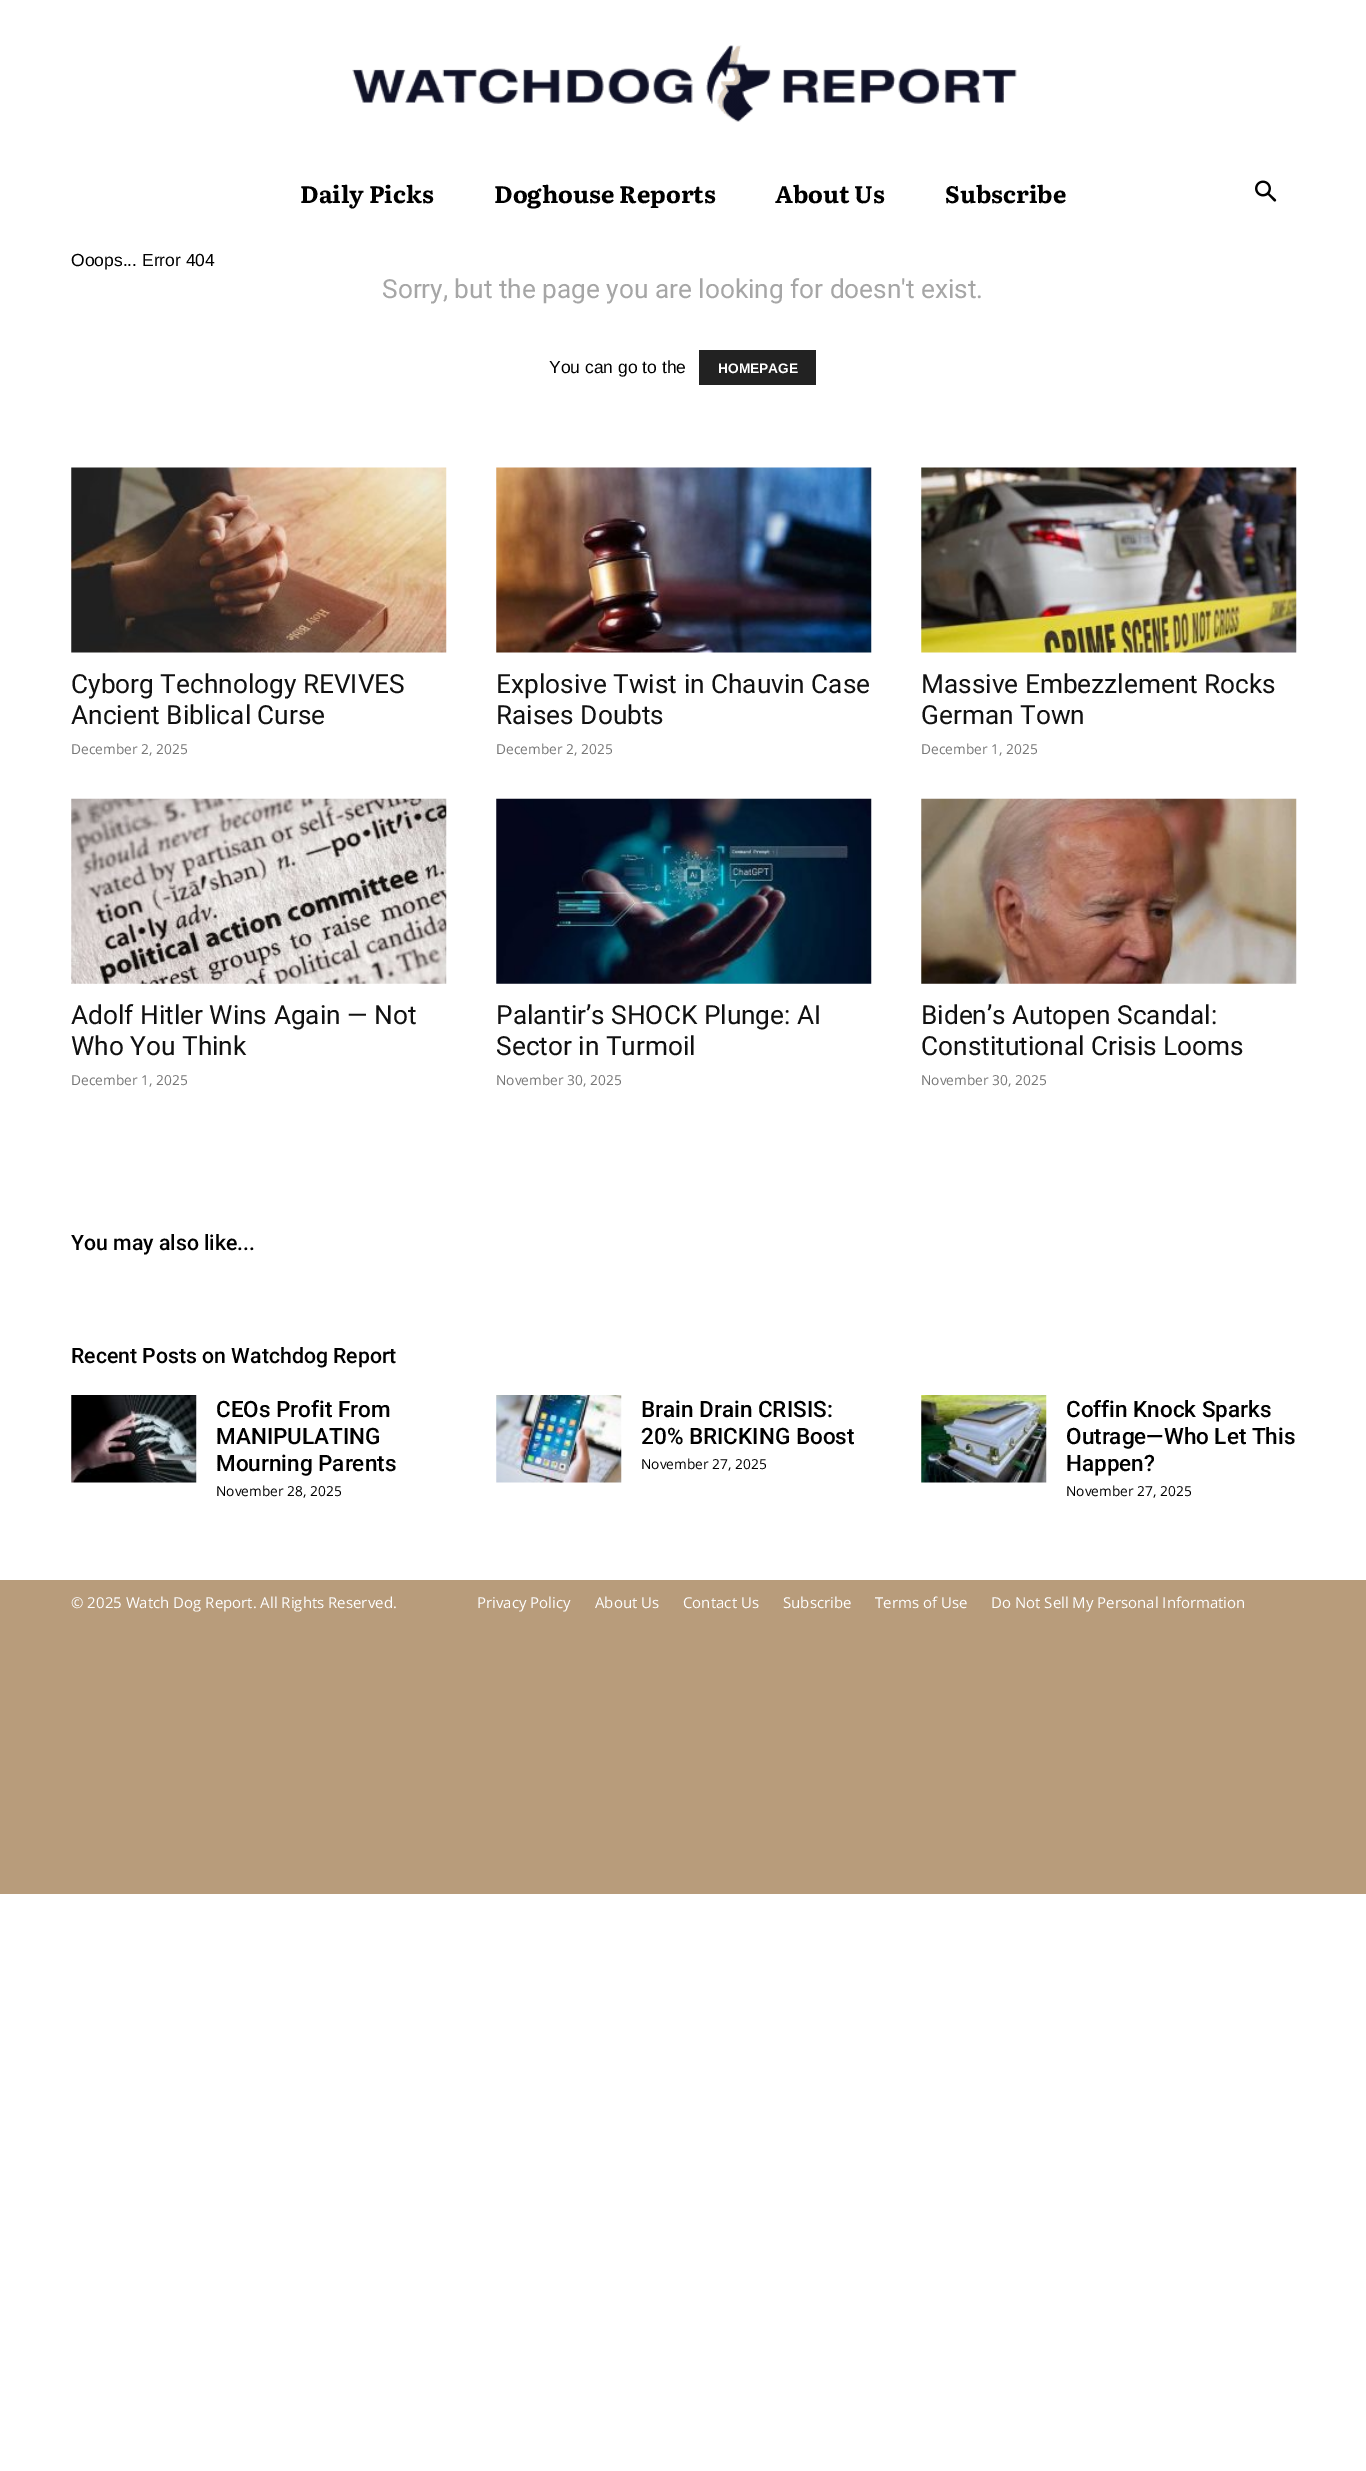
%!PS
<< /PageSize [1366 2471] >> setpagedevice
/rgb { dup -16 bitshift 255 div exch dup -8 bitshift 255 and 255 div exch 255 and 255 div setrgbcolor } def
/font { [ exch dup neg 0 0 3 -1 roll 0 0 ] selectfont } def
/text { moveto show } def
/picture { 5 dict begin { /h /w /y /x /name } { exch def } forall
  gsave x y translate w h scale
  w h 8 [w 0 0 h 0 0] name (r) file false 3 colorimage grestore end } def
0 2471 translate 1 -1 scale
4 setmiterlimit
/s1 { /Literata-Bold 23.75 font 16#000000 rgb } def
/s2 { /LiberationSans-Regular 17.5 font 16#000000 rgb } def
/s3 { /Roboto-Regular 26.25 font 16#A6A6A6 rgb } def
/s4 { /LiberationSans-Bold 13.75 font 16#FFFFFF rgb } def
/s5 { /Roboto-Regular 26.25 font 16#111111 rgb } def
/s6 { /OpenSans-Regular 13.75 font 16#767676 rgb } def
/s7 { /Roboto-Medium 21.25 font 16#000000 rgb } def
/s8 { /Roboto-Medium 22.5 font 16#000000 rgb } def
/s9 { /OpenSans-Regular 13.75 font 16#000000 rgb } def
/s10 { /OpenSans-Regular 15 font 16#FFFFFF rgb } def
16#FFFFFF rgb
0 0 1366 2471 rectfill
(pic1.raw) 352 45 665 77 picture
s1
(Daily Picks) 300 203 text
(Doghouse Reports) 494 203 text
(About Us) 775 203 text
(Subscribe) 945 203 text
(pic2.raw) 1255 180 22 22 picture
s2
(Ooops... Error 404) 71 266 text
s3
(Sorry, but the page you are looking for doesn't exist.) 382 298 text
s2
(You can go to the) 549 373 text
16#222222 rgb
699 350 117 35 rectfill
s4
(HOMEPAGE) 718 373 text
(pic3.raw) 71 467 376 186 picture
s5
(Cyborg Technology REVIVES) 71 693 text
(Ancient Biblical Curse) 71 724 text
s6
(December 2, 2025) 71 754 text
(pic4.raw) 496 467 376 186 picture
s5
(Explosive Twist in Chauvin Case) 496 693 text
(Raises Doubts) 496 724 text
s6
(December 2, 2025) 496 754 text
(pic5.raw) 921 467 376 186 picture
s5
(Massive Embezzlement Rocks) 921 693 text
(German Town) 921 724 text
s6
(December 1, 2025) 921 754 text
(pic6.raw) 71 798 376 186 picture
s5
(Adolf Hitler Wins Again — Not) 71 1024 text
(Who You Think) 71 1055 text
s6
(December 1, 2025) 71 1085 text
(pic7.raw) 496 798 376 186 picture
s5
(Palantir’s SHOCK Plunge: AI) 496 1024 text
(Sector in Turmoil) 496 1055 text
s6
(November 30, 2025) 496 1085 text
(pic8.raw) 921 798 376 186 picture
s5
(Biden’s Autopen Scandal:) 921 1024 text
(Constitutional Crisis Looms) 921 1055 text
s6
(November 30, 2025) 921 1085 text
s7
(You may also like...) 71 1250 text
(Recent Posts on Watchdog Report) 71 1363 text
(pic9.raw) 71 1395 126 88 picture
s8
(CEOs Profit From) 216 1417 text
(MANIPULATING) 216 1444 text
(Mourning Parents) 216 1471 text
s9
(November 28, 2025) 216 1496 text
(pic10.raw) 496 1395 126 88 picture
s8
(Brain Drain CRISIS:) 641 1417 text
(20% BRICKING Boost) 641 1444 text
s9
(November 27, 2025) 641 1469 text
(pic11.raw) 921 1395 126 88 picture
s8
(Coffin Knock Sparks) 1066 1417 text
(Outrage—Who Let This) 1066 1444 text
(Happen?) 1066 1471 text
s9
(November 27, 2025) 1066 1496 text
16#B89C7B rgb
0 1580 1366 314 rectfill
s10
(© 2025 Watch Dog Report. All Rights Reserved.) 71 1608 text
(Privacy Policy) 477 1608 text
(About Us) 595 1608 text
(Contact Us) 683 1608 text
(Subscribe) 783 1608 text
(Terms of Use) 875 1608 text
(Do Not Sell My Personal Information) 991 1608 text
showpage
